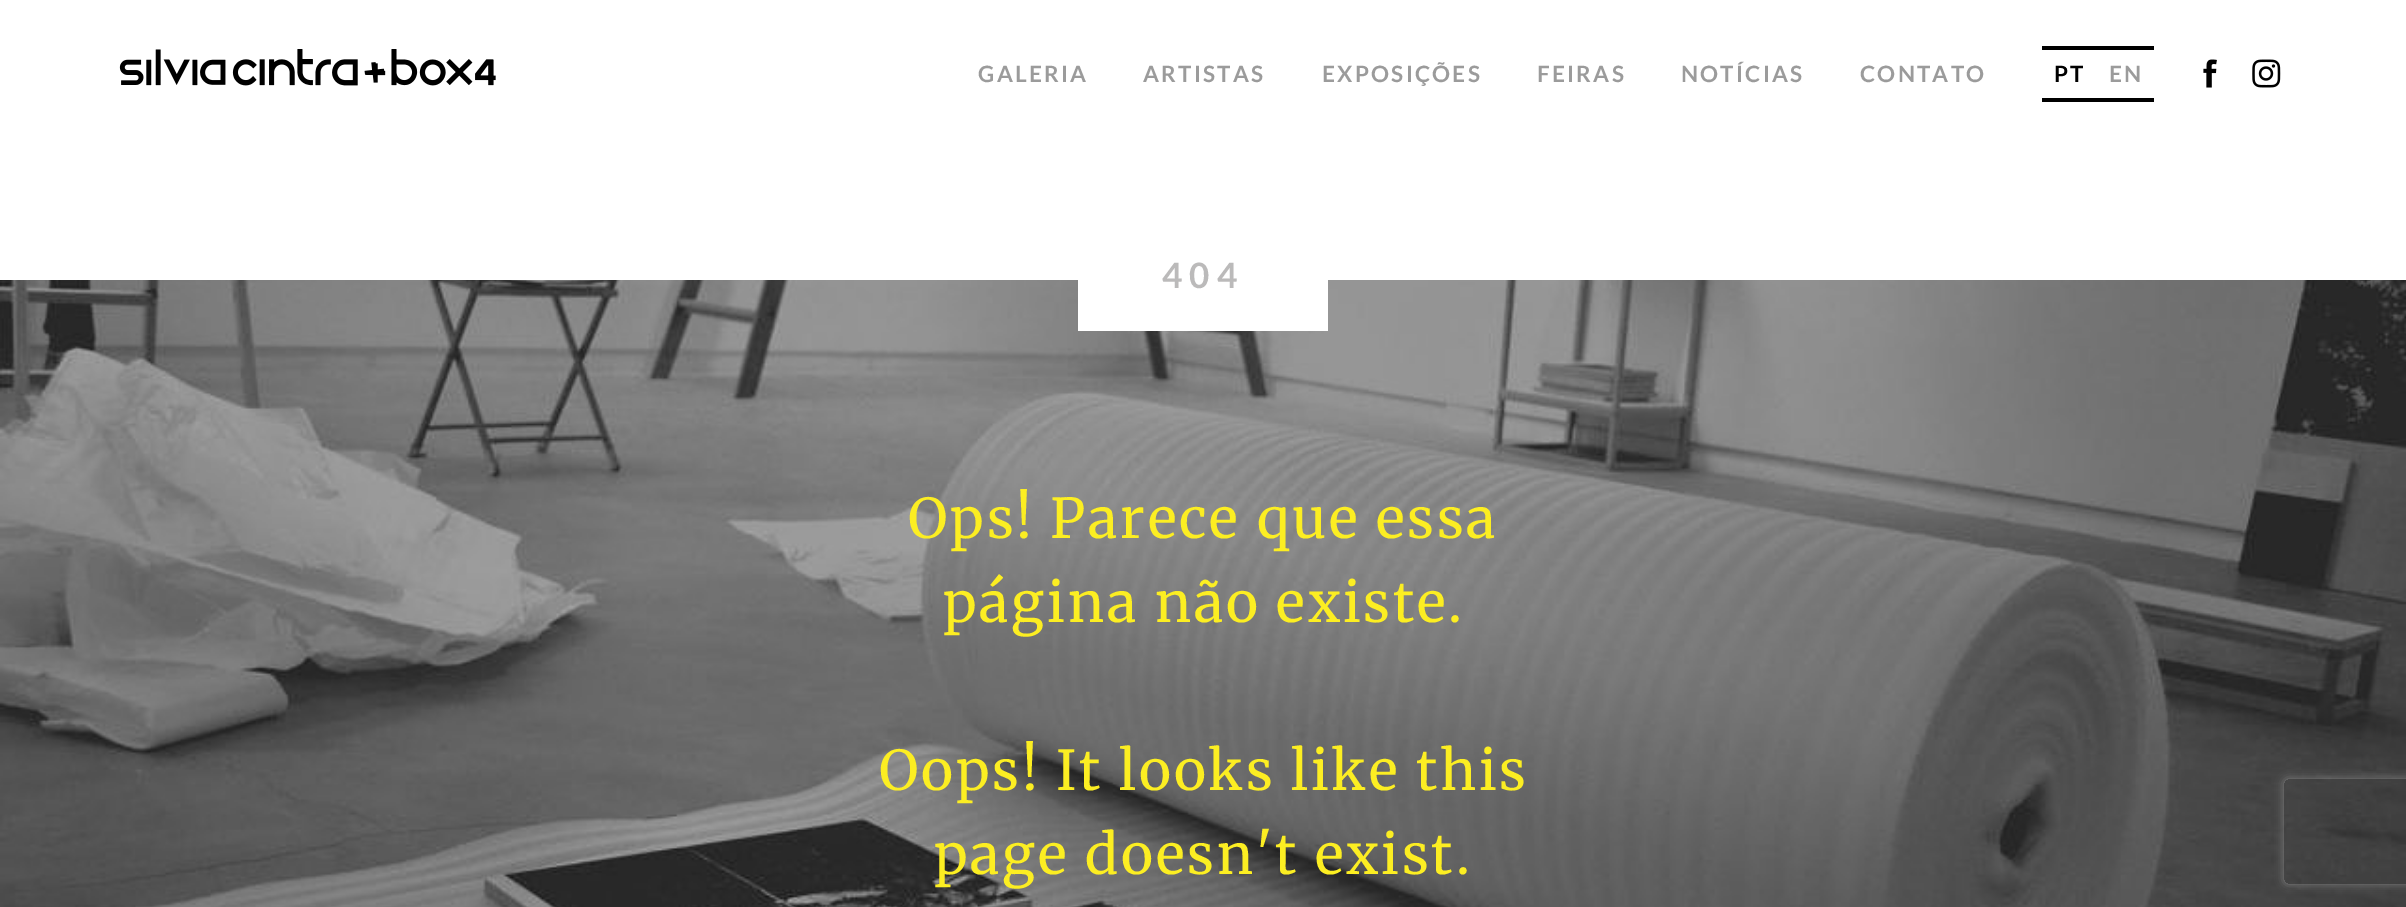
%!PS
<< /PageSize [2406 907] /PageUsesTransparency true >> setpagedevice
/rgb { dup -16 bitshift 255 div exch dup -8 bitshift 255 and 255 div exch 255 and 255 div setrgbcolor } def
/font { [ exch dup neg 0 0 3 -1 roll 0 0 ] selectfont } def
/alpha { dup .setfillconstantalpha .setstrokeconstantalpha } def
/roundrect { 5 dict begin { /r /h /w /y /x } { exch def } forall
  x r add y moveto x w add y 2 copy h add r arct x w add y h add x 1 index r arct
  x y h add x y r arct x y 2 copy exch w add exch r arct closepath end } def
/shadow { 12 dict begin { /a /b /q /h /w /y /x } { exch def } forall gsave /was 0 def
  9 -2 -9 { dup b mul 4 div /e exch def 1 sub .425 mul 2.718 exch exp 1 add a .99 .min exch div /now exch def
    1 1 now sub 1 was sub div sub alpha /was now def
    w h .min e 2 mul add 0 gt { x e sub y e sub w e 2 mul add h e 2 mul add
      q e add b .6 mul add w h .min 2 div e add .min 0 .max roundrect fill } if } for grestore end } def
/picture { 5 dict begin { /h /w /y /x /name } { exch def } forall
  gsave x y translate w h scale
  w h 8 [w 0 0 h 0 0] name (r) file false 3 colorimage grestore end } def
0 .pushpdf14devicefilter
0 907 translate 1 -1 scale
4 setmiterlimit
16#FFFFFF rgb
0 0 2406 907 rectfill
(pic1.raw) 119 49 377 37 picture
/Lato-Bold 22.5 font
16#9B9B9B rgb
978 82 moveto 2.25 0 (GALERIA) ashow
1143 82 moveto 2.25 0 (ARTISTAS) ashow
1322 82 moveto 2.25 0 (EXPOSIÇÕES) ashow
1537 82 moveto 2.25 0 (FEIRAS) ashow
1681 82 moveto 2.25 0 (NOTÍCIAS) ashow
1860 82 moveto 2.25 0 (CONTATO) ashow
16#000000 rgb
2042 98 112 4 rectfill
2042 46 112 4 rectfill
2054 82 moveto 2.25 0 (PT) ashow
16#9B9B9B rgb
2109 82 moveto 2.25 0 (EN) ashow
(pic2.raw) 2203 59 14 29 picture
(pic3.raw) 2252 59 29 29 picture
(pic4.raw) 0 280 2406 627 picture
16#FFFFFF rgb
1078 280 250 51 rectfill
/Lato-Bold 35 font
16#BBBABA rgb
1162 288 moveto 7 0 (404) ashow
/Merriweather-Regular 54.75 font
16#FCEE22 rgb
908 538 moveto 2.75 0 (Ops! Parece que essa) ashow
943 622 moveto 2.75 0 (página não existe.) ashow
879 790 moveto 2.75 0 (Oops! It looks like this) ashow
934 874 moveto 2.75 0 (page doesn't exist.) ashow
gsave
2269 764 moveto 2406 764 lineto 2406 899 lineto 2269 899 lineto closepath 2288 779 moveto 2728 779 lineto 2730 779 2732 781 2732 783 curveto 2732 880 lineto 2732 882 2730 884 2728 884 curveto 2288 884 lineto 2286 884 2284 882 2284 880 curveto 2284 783 lineto 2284 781 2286 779 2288 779 curveto closepath eoclip newpath
16#808080 rgb
2284 779 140 105 4 4.5 1 shadow
grestore
.poppdf14devicefilter showpage
